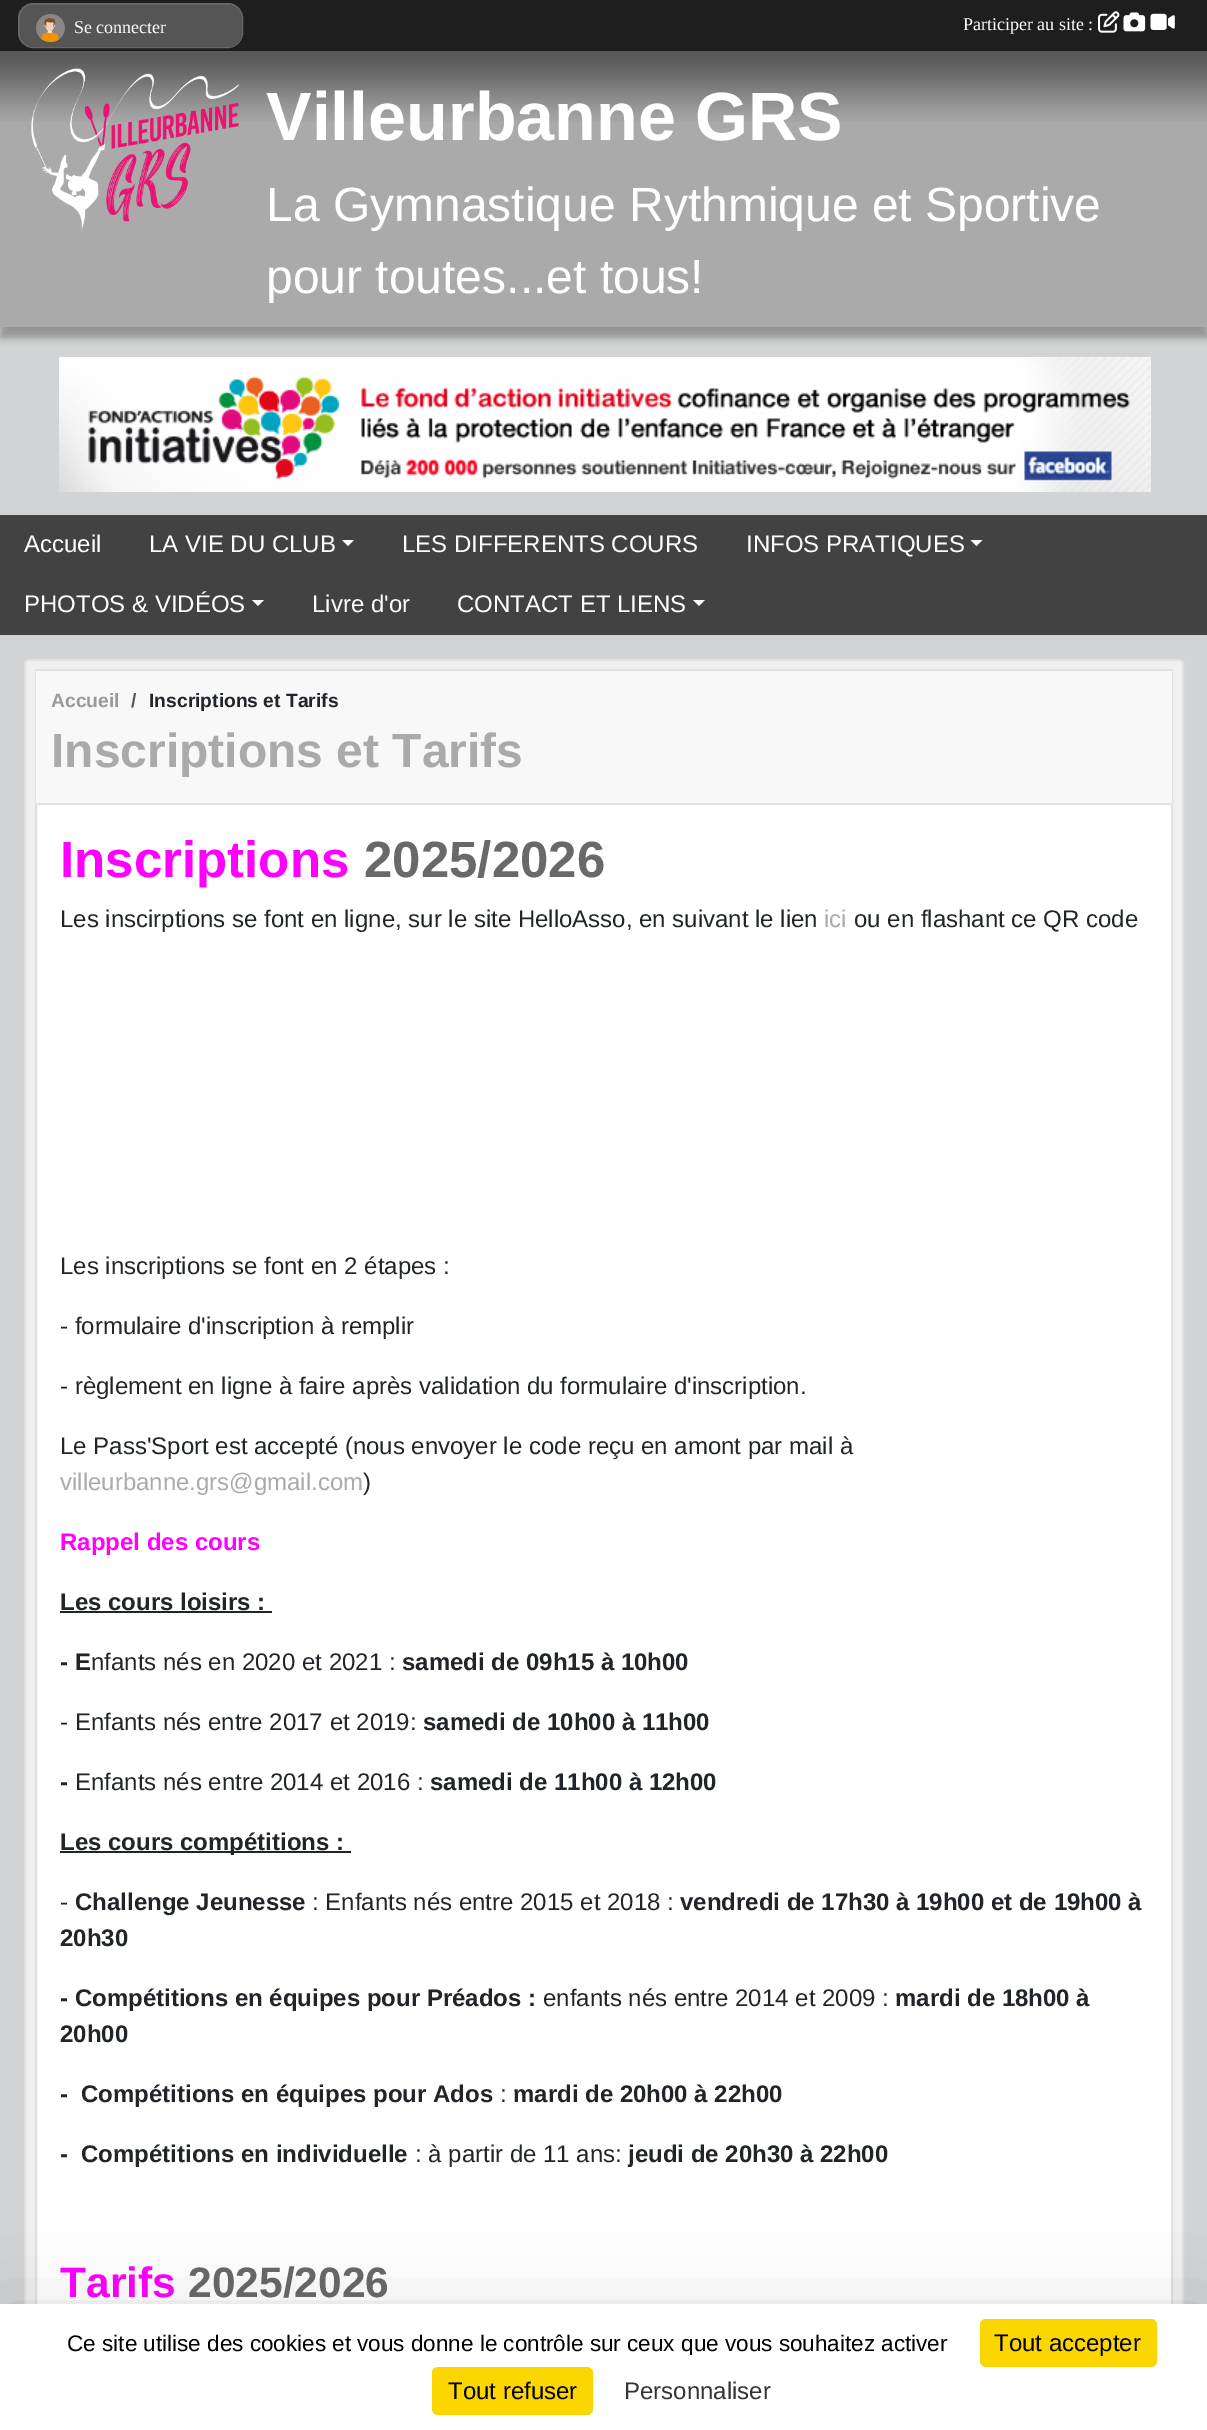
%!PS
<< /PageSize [1207 2430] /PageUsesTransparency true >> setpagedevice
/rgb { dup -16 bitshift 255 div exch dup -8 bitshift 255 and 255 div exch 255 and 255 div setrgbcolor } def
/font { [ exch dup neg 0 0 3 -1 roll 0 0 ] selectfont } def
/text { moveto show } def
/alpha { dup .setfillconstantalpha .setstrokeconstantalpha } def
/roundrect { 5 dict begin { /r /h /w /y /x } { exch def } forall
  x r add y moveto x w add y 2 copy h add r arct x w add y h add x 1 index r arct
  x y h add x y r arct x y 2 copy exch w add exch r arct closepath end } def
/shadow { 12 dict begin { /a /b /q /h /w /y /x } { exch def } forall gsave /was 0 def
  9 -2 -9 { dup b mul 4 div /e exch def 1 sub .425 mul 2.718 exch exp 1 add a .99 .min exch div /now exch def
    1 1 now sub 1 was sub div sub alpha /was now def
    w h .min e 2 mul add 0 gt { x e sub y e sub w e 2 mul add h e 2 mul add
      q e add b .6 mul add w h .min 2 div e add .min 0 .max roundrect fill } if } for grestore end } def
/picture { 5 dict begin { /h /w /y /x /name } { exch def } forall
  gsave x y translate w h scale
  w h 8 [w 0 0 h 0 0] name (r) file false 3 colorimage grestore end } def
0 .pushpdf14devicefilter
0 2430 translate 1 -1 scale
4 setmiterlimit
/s1 { /LiberationSerif-Regular 18 font 16#FFFFFF rgb } def
/s2 { /LiberationSans-Bold 68.25 font 16#FFFFFF rgb } def
/s3 { /LiberationSans-Regular 48 font 16#FFFFFF rgb } def
/s4 { /LiberationSans-Regular 24 font 16#FFFFFF rgb } def
/s5 { /LiberationSans-Bold 19.25 font 16#999999 rgb } def
/s6 { /LiberationSans-Bold 19.25 font 16#575A5D rgb } def
/s7 { /LiberationSans-Bold 19.25 font 16#212529 rgb } def
/s8 { /LiberationSans-Bold 48 font 16#AAAAAA rgb } def
/s9 { /LiberationSans-Bold 51 font 16#FF00FF rgb } def
/s10 { /LiberationSans-Bold 51 font 16#696969 rgb } def
/s11 { /LiberationSans-Regular 24 font 16#212529 rgb } def
/s12 { /LiberationSans-Regular 24 font 16#AAAAAA rgb } def
/s13 { /LiberationSans-Bold 24 font 16#FF00FF rgb } def
/s14 { /LiberationSans-Bold 24 font 16#212529 rgb } def
/s15 { /LiberationSans-Bold 42.5 font 16#FF00FF rgb } def
/s16 { /LiberationSans-Bold 42.5 font 16#696969 rgb } def
/s17 { /LiberationSans-Regular 22.5 font 16#000000 rgb } def
/s18 { /LiberationSans-Regular 24 font 16#000000 rgb } def
/s19 { /LiberationSans-Regular 24 font 16#333333 rgb } def
16#D2D3D4 rgb
0 0 1207 2430 rectfill
16#505050 rgb
0 62 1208 276 0 4 0.5 shadow
16#1E1E1E rgb
0 0 1207 51 rectfill
16#333333 rgb
19 4 223 43 14 roundrect gsave fill grestore
16#666666 rgb
2 setlinewidth
stroke
16#555555 rgb
20 5 222 42 14 roundrect fill
(pic1.raw) 36 14 29 28 picture
s1
(Se connecter) 74 33 text
(Participer au site :) 963 30 text
(pic2.raw) 1098 11 22 22 picture
(pic3.raw) 1123 12 23 20 picture
(pic4.raw) 1150 13 25 17 picture
16#AAAAAA rgb
0 51 1207 276 rectfill
(pic5.raw) 0 51 1207 71 picture
(pic6.raw) 31 68 209 163 picture
s2
(Villeurbanne GRS) 266 140 text
s3
(La Gymnastique Rythmique et Sportive) 266 221 text
(pour toutes...et tous!) 266 293 text
(pic7.raw) 59 357 1092 135 picture
16#424242 rgb
0 515 1207 120 rectfill
s4
(Accueil) 24 552 text
(LA VIE DU CLUB) 149 552 text
342 540 moveto 354 540 lineto 348 546 lineto closepath fill
(LES DIFFERENTS COURS) 402 552 text
(INFOS PRATIQUES) 746 552 text
970.5 540 moveto 982.5 540 lineto 976.5 546 lineto closepath fill
(PHOTOS & VIDÉOS) 24 612 text
252 600 moveto 264 600 lineto 258 606 lineto closepath fill
(Livre d'or) 312 612 text
(CONTACT ET LIENS) 457 612 text
693 600 moveto 705 600 lineto 699 606 lineto closepath fill
16#F0F0F0 rgb
25 660 1158 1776 4 roundrect gsave fill grestore
16#E1E1E1 rgb
stroke
16#FFFFFF rgb
37 805 1134 1499 rectfill
16#E1E1E1 rgb
36 670 1136 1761 rectstroke
16#F8F8F8 rgb
36 671 1136 132 rectfill
16#E1E1E1 rgb
36 803 1136 2 rectfill
s5
(Accueil) 51 707 text
s6
(/) 131 707 text
s7
(Inscriptions et Tarifs) 149 707 text
s8
(Inscriptions et Tarifs) 51 767 text
s9
(Inscriptions) 60 877 text
s10
(2025/2026) 364 877 text
s11
(Les inscirptions se font en ligne, sur le site HelloAsso, en suivant le lien) 60 927 text
s12
(ici) 824 927 text
s11
(ou en flashant ce QR code) 854 927 text
(Les inscriptions se font en 2 étapes :) 60 1274 text
(- formulaire d'inscription à remplir) 60 1334 text
(- règlement en ligne à faire après validation du formulaire d'inscription.) 60 1394 text
(Le Pass'Sport est accepté \(nous envoyer le code reçu en amont par mail à) 60 1454 text
s12
(villeurbanne.grs@gmail.com) 60 1490 text
s11
(\)) 363 1490 text
s13
(Rappel des cours) 60 1550 text
s14
(Les cours loisirs :) 60 1610 text
60 1611 212 2 rectfill
(- E) 60 1670 text
s11
(nfants nés en 2020 et 2021 :) 91 1670 text
s14
(samedi de 09h15 à 10h00) 402 1670 text
s11
(- Enfants nés entre 2017 et 2019:) 60 1730 text
s14
(samedi de 10h00 à 11h00) 423 1730 text
(-) 60 1790 text
s11
(Enfants nés entre 2014 et 2016 :) 75 1790 text
s14
(samedi de 11h00 à 12h00) 430 1790 text
60 1851 291 2 rectfill
(Les cours compétitions :) 60 1850 text
s11
(-) 60 1910 text
s14
(Challenge Jeunesse) 75 1910 text
s11
(: Enfants nés entre 2015 et 2018 :) 312 1910 text
s14
(vendredi de 17h30 à 19h00 et de 19h00 à) 680 1910 text
(20h30) 60 1946 text
(- Compétitions en équipes pour Préados :) 60 2006 text
s11
(enfants nés entre 2014 et 2009 :) 543 2006 text
s14
(mardi de 18h00 à) 895 2006 text
(20h00) 60 2042 text
(-) 60 2102 text
(Compétitions en équipes pour Ados) 81 2102 text
s11
(:) 500 2102 text
s14
(mardi de 20h00 à 22h00) 513 2102 text
(-) 60 2162 text
(Compétitions en individuelle) 81 2162 text
s11
(: à partir de 11 ans:) 415 2162 text
s14
(jeudi de 20h30 à 22h00) 628 2162 text
s15
(Tarifs) 60 2297 text
s16
(2025/2026) 188 2297 text
16#000000 rgb
0 2334 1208 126 0 45 0.25 shadow
16#FFFFFF rgb
0 2304 1207 126 rectfill
gsave
53 2330 910 25 rectclip
s17
(Ce site utilise des cookies et vous donne le contrôle sur ceux que vous souhaitez activer) 67 2351 text
grestore
16#FBD600 rgb
980 2319 177 48 6 roundrect fill
s18
(Tout accepter) 994 2351 text
16#FBD600 rgb
432 2367 161 48 6 roundrect fill
s18
(Tout refuser) 448 2399 text
s19
(Personnaliser) 624 2399 text
.poppdf14devicefilter showpage
